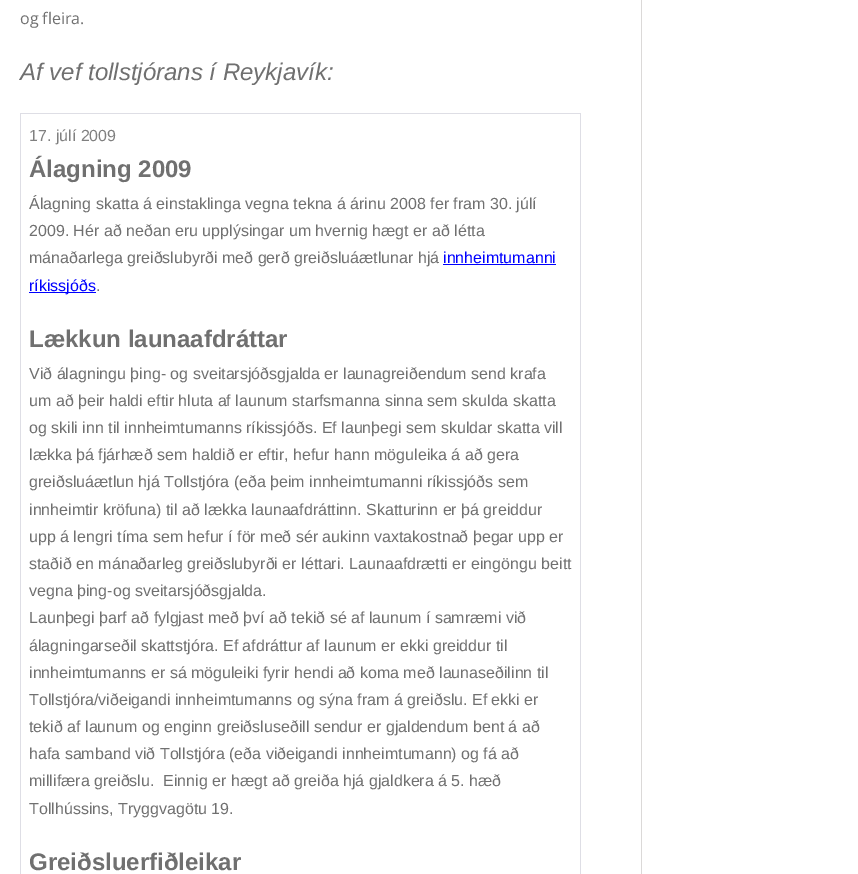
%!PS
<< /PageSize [858 874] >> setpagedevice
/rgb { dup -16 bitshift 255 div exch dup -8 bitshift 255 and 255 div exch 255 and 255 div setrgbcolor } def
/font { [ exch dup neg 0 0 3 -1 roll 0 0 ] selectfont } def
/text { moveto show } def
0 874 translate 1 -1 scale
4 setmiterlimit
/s1 { /OpenSans-Regular 16 font 16#707070 rgb } def
/s2 { /LiberationSans-Italic 24 font 16#707070 rgb } def
/s3 { /LiberationSans-Regular 16 font 16#808080 rgb } def
/s4 { /LiberationSans-Bold 24 font 16#707070 rgb } def
/s5 { /LiberationSans-Regular 16 font 16#707070 rgb } def
/s6 { /LiberationSans-Regular 16 font 16#0000FF rgb } def
16#FFFFFF rgb
0 0 858 874 rectfill
s1
(og fleira.) 20 24 text
s2
(Af vef tollstjórans í Reykjavík:) 20 80 text
16#DEDEE5 rgb
20 113 561 1 rectfill
580 113 1 761 rectfill
20 113 1 761 rectfill
s3
(17. júlí 2009) 29 141 text
s4
(Álagning 2009) 29 177 text
s5
(Álagning skatta á einstaklinga vegna tekna á árinu 2008 fer fram 30. júlí) 29 209 text
(2009. Hér að neðan eru upplýsingar um hvernig hægt er að létta) 29 236 text
(mánaðarlega greiðslubyrði með gerð greiðsluáætlunar hjá) 29 263 text
s6
(innheimtumanni) 443 263 text
443 264 113 1 rectfill
29 292 67 1 rectfill
(ríkissjóðs) 29 291 text
s5
(.) 96 291 text
s4
(Lækkun launaafdráttar) 29 347 text
s5
(Við álagningu þing- og sveitarsjóðsgjalda er launagreiðendum send krafa) 29 379 text
(um að þeir haldi eftir hluta af launum starfsmanna sinna sem skulda skatta) 29 406 text
(og skili inn til innheimtumanns ríkissjóðs. Ef launþegi sem skuldar skatta vill) 29 433 text
(lækka þá fjárhæð sem haldið er eftir, hefur hann möguleika á að gera) 29 460 text
(greiðsluáætlun hjá Tollstjóra \(eða þeim innheimtumanni ríkissjóðs sem) 29 487 text
(innheimtir kröfuna\) til að lækka launaafdráttinn. Skatturinn er þá greiddur) 29 515 text
(upp á lengri tíma sem hefur í för með sér aukinn vaxtakostnað þegar upp er) 29 542 text
(staðið en mánaðarleg greiðslubyrði er léttari. Launaafdrætti er eingöngu beitt) 29 569 text
(vegna þing-og sveitarsjóðsgjalda.) 29 596 text
(Launþegi þarf að fylgjast með því að tekið sé af launum í samræmi við) 29 623 text
(álagningarseðil skattstjóra. Ef afdráttur af launum er ekki greiddur til) 29 651 text
(innheimtumanns er sá möguleiki fyrir hendi að koma með launaseðilinn til) 29 678 text
(Tollstjóra/viðeigandi innheimtumanns og sýna fram á greiðslu. Ef ekki er) 29 705 text
(tekið af launum og enginn greiðsluseðill sendur er gjaldendum bent á að) 29 732 text
(hafa samband við Tollstjóra \(eða viðeigandi innheimtumann\) og fá að) 29 759 text
(millifæra greiðslu.  Einnig er hægt að greiða hjá gjaldkera á 5. hæð) 29 786 text
(Tollhússins, Tryggvagötu 19.) 29 814 text
s4
(Greiðsluerfiðleikar) 29 870 text
16#DBD9D8 rgb
641 0 1 874 rectfill
showpage
